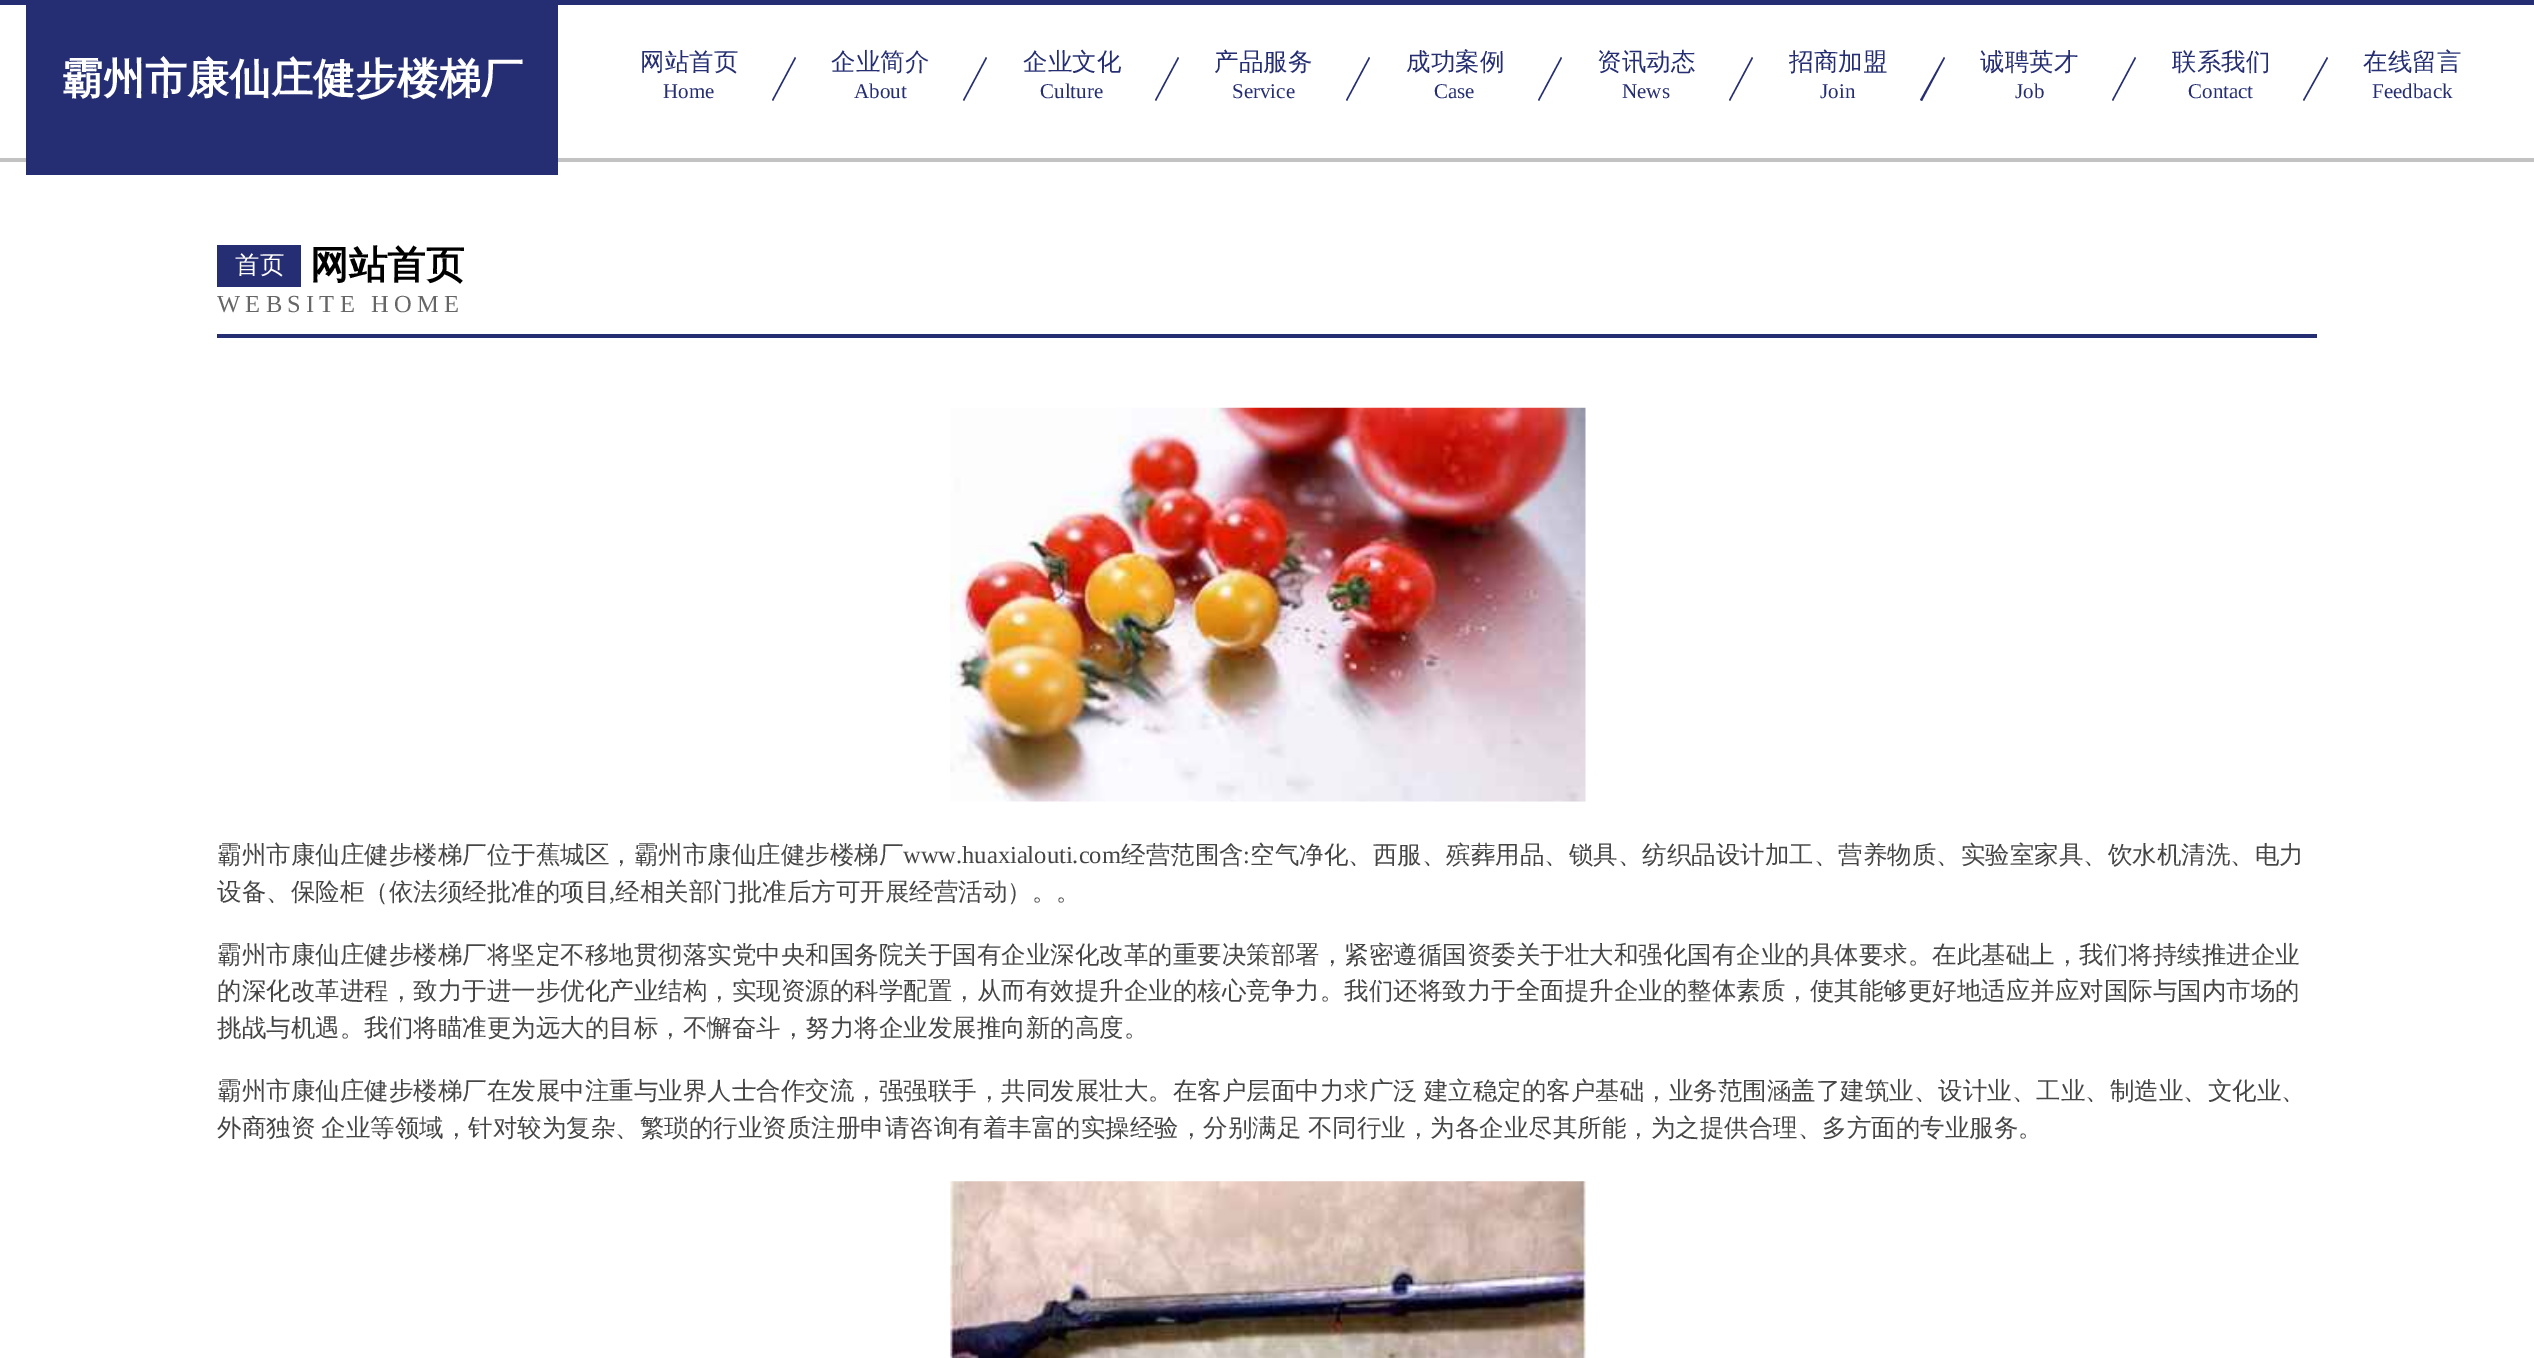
%!PS
<< /PageSize [2534 1358] >> setpagedevice
/rgb { dup -16 bitshift 255 div exch dup -8 bitshift 255 and 255 div exch 255 and 255 div setrgbcolor } def
/font { [ exch dup neg 0 0 3 -1 roll 0 0 ] selectfont } def
/text { moveto show } def
/picture { 5 dict begin { /h /w /y /x /name } { exch def } forall
  gsave x y translate w h scale
  w h 8 [w 0 0 h 0 0] name (r) file false 3 colorimage grestore end } def
0 1358 translate 1 -1 scale
4 setmiterlimit
/s1 { /WenQuanYiZenHei-Bold 42 font 16#FFFFFF rgb } def
/s2 { /WenQuanYiZenHei-Medium 24.5 font 16#252E72 rgb } def
/s3 { /LiberationSerif-Regular 21 font 16#252E72 rgb } def
/s4 { /WenQuanYiZenHei-Medium 24.5 font 16#FFFFFF rgb } def
/s5 { /WenQuanYiZenHei-Bold 38.5 font 16#000000 rgb } def
/s6 { /WenQuanYiZenHei-Medium 24.5 font 16#454545 rgb } def
/s7 { /LiberationSerif-Regular 24.5 font 16#454545 rgb } def
16#FFFFFF rgb
0 0 2534 1358 rectfill
16#252E72 rgb
0 0 2534 5 rectfill
16#C2C2C2 rgb
0 158 2534 4 rectfill
16#252E72 rgb
26 5 532 170 rectfill
s1
(霸州市康仙庄健步楼梯厂) 61 93 text
s2
(网站首页) 640 70 text
795 57 moveto 796 58 lineto 773 101 lineto 772 100 lineto closepath fill
s3
(Home) 663 98 text
s2
(企业简介) 831 70 text
986 57 moveto 987 58 lineto 964 101 lineto 963 100 lineto closepath fill
s3
(About) 854 98 text
s2
(企业文化) 1023 70 text
1178 57 moveto 1179 58 lineto 1156 101 lineto 1155 100 lineto closepath fill
s3
(Culture) 1040 98 text
s2
(产品服务) 1214 70 text
1369 57 moveto 1370 58 lineto 1347 101 lineto 1346 100 lineto closepath fill
s3
(Service) 1232 98 text
s2
(成功案例) 1406 70 text
1561 57 moveto 1562 58 lineto 1539 101 lineto 1538 100 lineto closepath fill
s3
(Case) 1434 98 text
s2
(资讯动态) 1597 70 text
1752 57 moveto 1753 58 lineto 1730 101 lineto 1729 100 lineto closepath fill
s3
(News) 1622 98 text
s2
(招商加盟) 1789 70 text
1944 57 moveto 1945 58 lineto 1922 101 lineto 1920 100 lineto closepath fill
s3
(Join) 1820 98 text
s2
(诚聘英才) 1980 70 text
2135 57 moveto 2136 58 lineto 2113 101 lineto 2112 100 lineto closepath fill
s3
(Job) 2015 98 text
s2
(联系我们) 2172 70 text
2327 57 moveto 2328 58 lineto 2304 101 lineto 2303 100 lineto closepath fill
s3
(Contact) 2188 98 text
s2
(在线留言) 2363 70 text
s3
(Feedback) 2372 98 text
217 334 2100 4 rectfill
217 245 84 42 rectfill
s4
(首页) 235 273 text
s5
(网站首页) 310 278 text
/LiberationSerif-Regular 24.5 font
16#666666 rgb
217 312 moveto 5.25 0 (WEBSITE HOME) ashow
(pic1.raw) 950 407 636 395 picture
s6
(霸州市康仙庄健步楼梯厂位于蕉城区，霸州市康仙庄健步楼梯厂) 217 863 text
s7
(www.huaxialouti.com) 903 863 text
s6
(经营范围含) 1121 863 text
s7
(:) 1243 863 text
s6
(空气净化、西服、殡葬用品、锁具、纺织品设计加工、营养物质、实验室家具、饮水机清洗、电力) 1250 863 text
(设备、保险柜（依法须经批准的项目) 217 900 text
s7
(,) 609 900 text
s6
(经相关部门批准后方可开展经营活动）。。) 615 900 text
(霸州市康仙庄健步楼梯厂将坚定不移地贯彻落实党中央和国务院关于国有企业深化改革的重要决策部署，紧密遵循国资委关于壮大和强化国有企业的具体要求。在此基础上，我们将持续推进企业) 217 963 text
(的深化改革进程，致力于进一步优化产业结构，实现资源的科学配置，从而有效提升企业的核心竞争力。我们还将致力于全面提升企业的整体素质，使其能够更好地适应并应对国际与国内市场的) 217 999 text
(挑战与机遇。我们将瞄准更为远大的目标，不懈奋斗，努力将企业发展推向新的高度。) 217 1036 text
217 1099 moveto -1 0 32 (霸州市康仙庄健步楼梯厂在发展中注重与业界人士合作交流，强强联手，共同发展壮大。在客户层面中力求广泛 建立稳定的客户基础，业务范围涵盖了建筑业、设计业、工业、制造业、文化业、) widthshow
217 1136 moveto -1 0 32 (外商独资 企业等领域，针对较为复杂、繁琐的行业资质注册申请咨询有着丰富的实操经验，分别满足 不同行业，为各企业尽其所能，为之提供合理、多方面的专业服务。) widthshow
(pic2.raw) 950 1181 636 177 picture
showpage
